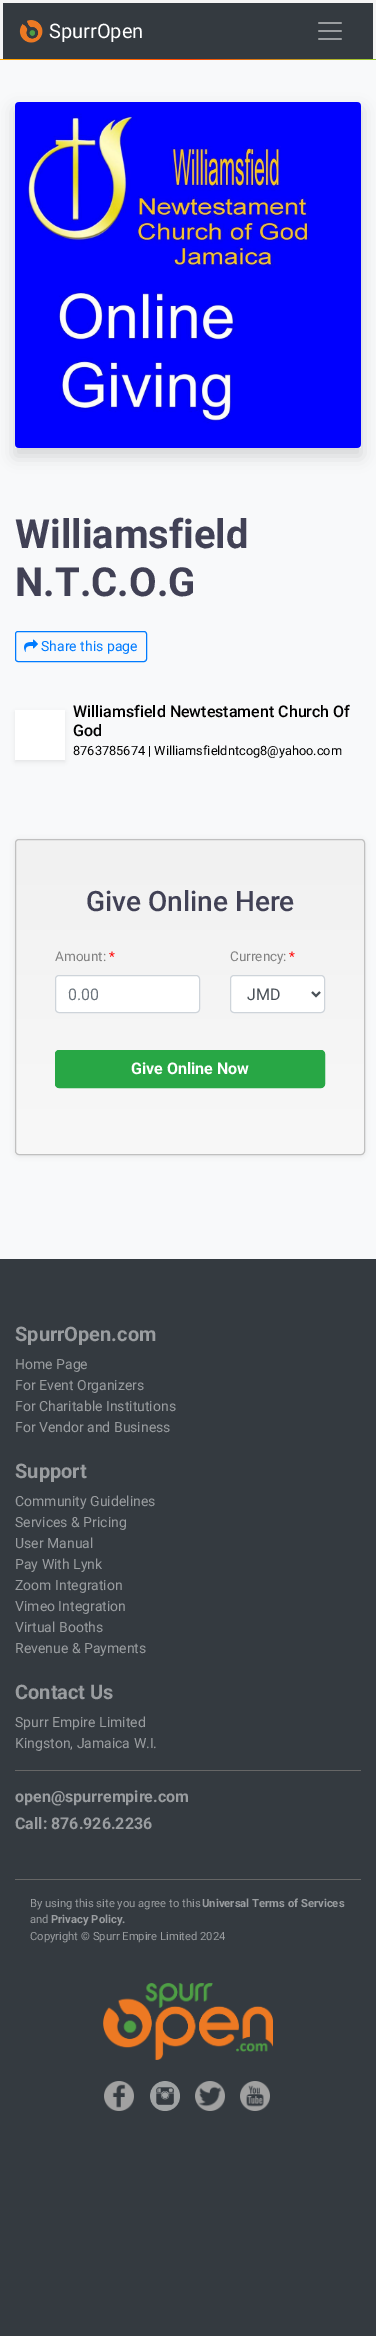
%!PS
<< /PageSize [376 2336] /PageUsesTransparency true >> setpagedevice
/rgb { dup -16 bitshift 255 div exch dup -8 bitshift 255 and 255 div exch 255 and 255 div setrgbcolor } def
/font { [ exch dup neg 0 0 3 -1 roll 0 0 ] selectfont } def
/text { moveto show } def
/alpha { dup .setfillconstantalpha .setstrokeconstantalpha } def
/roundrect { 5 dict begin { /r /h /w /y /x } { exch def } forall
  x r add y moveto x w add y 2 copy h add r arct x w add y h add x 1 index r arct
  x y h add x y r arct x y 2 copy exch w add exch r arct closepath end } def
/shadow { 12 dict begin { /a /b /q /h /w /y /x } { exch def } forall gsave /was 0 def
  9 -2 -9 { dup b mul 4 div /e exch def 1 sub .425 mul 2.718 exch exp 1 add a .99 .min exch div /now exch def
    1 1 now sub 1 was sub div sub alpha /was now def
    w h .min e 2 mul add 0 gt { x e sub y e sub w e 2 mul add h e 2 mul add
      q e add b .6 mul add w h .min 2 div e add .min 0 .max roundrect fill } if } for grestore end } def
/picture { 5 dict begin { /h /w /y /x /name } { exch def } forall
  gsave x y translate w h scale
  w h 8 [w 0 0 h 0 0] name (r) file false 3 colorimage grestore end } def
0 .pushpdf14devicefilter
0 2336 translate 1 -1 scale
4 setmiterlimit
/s1 { /Roboto-Regular 20 font 16#FFFFFF rgb } def
/s2 { /Roboto-Bold 40 font 16#414155 rgb } def
/s3 { /Roboto-Regular 14 font 16#007BFF rgb } def
/s4 { /Roboto-Medium 16 font 16#000000 rgb } def
/s5 { /Roboto-Regular 12.8 font 16#000000 rgb } def
/s6 { /Roboto-Medium 28 font 16#414155 rgb } def
/s7 { /Roboto-Regular 13.5 font 16#808080 rgb } def
/s8 { /Roboto-Regular 13.5 font 16#FF0000 rgb } def
/s9 { /Roboto-Regular 16 font 16#6C757D rgb } def
/s10 { /Roboto-Regular 16 font 16#495057 rgb } def
/s11 { /Roboto-Bold 16 font 16#FFFFFF rgb } def
/s12 { /Roboto-Bold 20 font 16#9A9DA0 rgb } def
/s13 { /Roboto-Regular 14 font 16#9A9DA0 rgb } def
/s14 { /Roboto-Bold 16 font 16#9A9DA0 rgb } def
/s15 { /Roboto-Regular 11.25 font 16#9A9DA0 rgb } def
/s16 { /Roboto-Bold 11.25 font 16#9A9DA0 rgb } def
16#343A40 rgb
0 0 376 2336 rectfill
16#F5F5F5 rgb
0 0 376 59 rectfill
16#343A40 rgb
3 3 370 56 rectfill
(pic1.raw) 0 59 376 1 picture
(pic2.raw) 19 20 24 23 picture
s1
(SpurrOpen) 49 38 text
(pic3.raw) 318 22 24 18 picture
16#F8F9FA rgb
0 60 376 1199 rectfill
16#000000 rgb
15 110 346 346 0 8 0.15 shadow
(pic4.raw) 15 102 346 346 picture
s2
(Williamsfield) 15 548 text
(N.T.C.O.G) 15 596 text
16#007BFF rgb
15.5 631.5 131 30 2.5 roundrect stroke
(pic5.raw) 24 639 14 13 picture
s3
(Share this page) 41 651 text
16#000000 rgb
15 712 50 50 0 2 0.07 shadow
16#FFFFFF rgb
15 710 50 50 rectfill
s4
(Williamsfield Newtestament Church Of) 73 717 text
(God) 73 736 text
s5
(8763785674 | Williamsfieldntcog8@yahoo.com) 73 755 text
15 840 350 316 4 2.5 0.07 shadow
gsave
15 839 350 316 4 roundrect clip newpath
gsave 15 840 moveto 365 840 lineto 365 1154 lineto 15 1154 lineto closepath clip newpath
<< /ShadingType 2 /ColorSpace /DeviceRGB /Coords [190 840 190 1154] /Extend [true true] /Function << /FunctionType 2 /Domain [0 1] /C0 [0.945 0.945 0.945] /C1 [0.973 0.973 0.973] /N 1 >> >> shfill grestore
grestore
16#C0C0C0 rgb
15.5 839.5 349 315 3.5 roundrect stroke
s6
(Give Online Here) 86 911 text
s7
(Amount:) 55 961 text
s8
(*) 109 961 text
16#FFFFFF rgb
55.5 975.5 144 37 3.5 roundrect gsave fill grestore
16#CED4DA rgb
stroke
s9
(0.00) 68 1000 text
s7
(Currency:) 230 961 text
s8
(*) 289 961 text
16#FFFFFF rgb
230.5 975.5 94 37 3.5 roundrect gsave fill grestore
16#CED4DA rgb
stroke
16#495057 rgb
2 setlinewidth
312 992 moveto 316 996 lineto 320 992 lineto stroke
s10
(JMD) 247 1000 text
16#28A745 rgb
55.5 1050.5 269 37 3.5 roundrect gsave fill grestore
1 setlinewidth
stroke
s11
(Give Online Now) 131 1074 text
s12
(SpurrOpen.com) 15 1341 text
s13
(Home Page) 15 1369 text
(For Event Organizers) 15 1390 text
(For Charitable Institutions) 15 1411 text
(For Vendor and Business) 15 1432 text
s12
(Support) 15 1478 text
s13
(Community Guidelines) 15 1506 text
(Services & Pricing) 15 1527 text
(User Manual) 15 1548 text
(Pay With Lynk) 15 1569 text
(Zoom Integration) 15 1590 text
(Vimeo Integration) 15 1611 text
(Virtual Booths) 15 1632 text
(Revenue & Payments) 15 1653 text
s12
(Contact Us) 15 1699 text
s13
(Spurr Empire Limited) 15 1727 text
(Kingston, Jamaica W.I.) 15 1748 text
16#666666 rgb
15 1770 346 1 rectfill
s14
(open@spurrempire.com) 15 1802 text
(Call: 876.926.2236) 15 1829 text
16#666666 rgb
15 1879 346 1 rectfill
s15
(By using this site you agree to this) 30 1907 text
s16
(Universal Terms of Services) 202 1907 text
s15
(and) 30 1923 text
s16
(Privacy Policy.) 51 1923 text
s15
(Copyright © Spurr Empire Limited 2024) 30 1940 text
(pic6.raw) 103 1983 170 77 picture
(pic7.raw) 104 2081 30 30 picture
(pic8.raw) 150 2081 30 30 picture
(pic9.raw) 195 2081 30 30 picture
(pic10.raw) 240 2081 30 30 picture
.poppdf14devicefilter showpage
